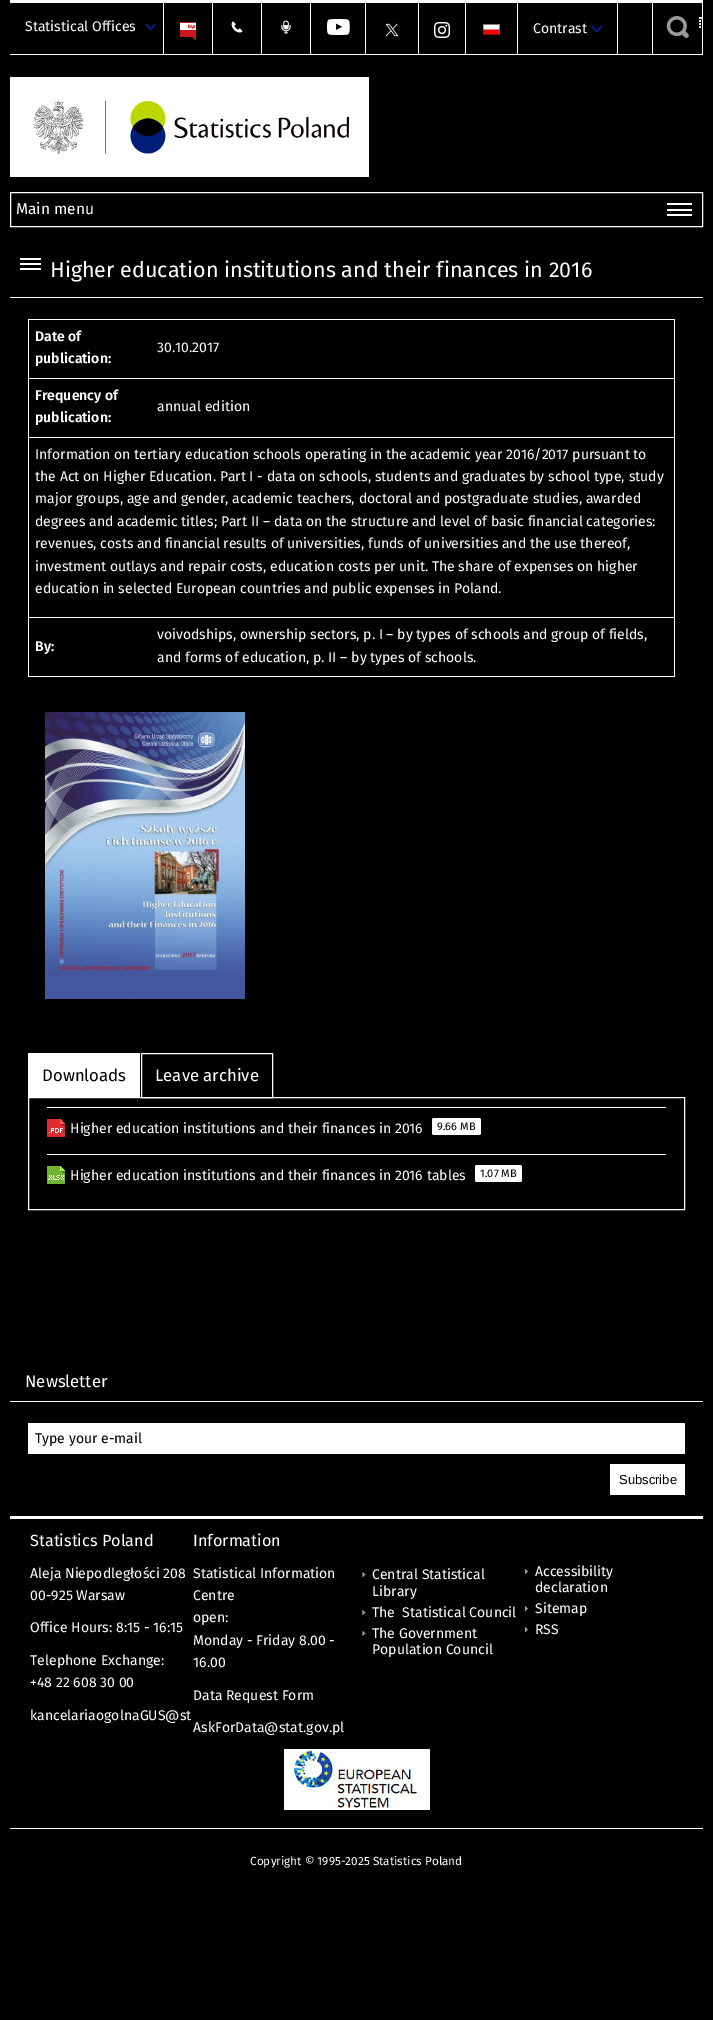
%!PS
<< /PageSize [713 2020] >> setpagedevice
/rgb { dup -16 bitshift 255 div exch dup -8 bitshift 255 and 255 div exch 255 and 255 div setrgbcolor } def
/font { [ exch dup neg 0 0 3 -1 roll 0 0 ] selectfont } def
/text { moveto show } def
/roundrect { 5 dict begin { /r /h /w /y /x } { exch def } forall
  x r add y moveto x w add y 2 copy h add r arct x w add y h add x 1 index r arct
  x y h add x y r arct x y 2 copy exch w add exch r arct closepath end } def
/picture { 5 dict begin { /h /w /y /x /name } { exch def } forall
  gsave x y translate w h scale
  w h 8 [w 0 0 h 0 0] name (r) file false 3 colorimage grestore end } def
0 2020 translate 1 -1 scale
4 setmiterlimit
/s1 { /FiraSans-Regular 14 font 16#FFFFFF rgb } def
/s2 { /FiraSans-Regular 15.5 font 16#FFFFFF rgb } def
/s3 { /FiraSans-Regular 21.5 font 16#FFFFFF rgb } def
/s4 { /FiraSans-SemiBold 14 font 16#FFFFFF rgb } def
/s5 { /FiraSans-Regular 16.75 font 16#000000 rgb } def
/s6 { /FiraSans-Regular 16.75 font 16#FFFFFF rgb } def
/s7 { /FiraSans-Regular 11 font 16#000000 rgb } def
/s8 { /FiraSans-Regular 14 font 16#000000 rgb } def
/s9 { /LiberationSans-Regular 13 font 16#000000 rgb } def
/s10 { /FiraSans-Regular 16.25 font 16#FFFFFF rgb } def
/s11 { /FiraSans-Regular 11.8 font 16#FFFFFF rgb } def
16#000000 rgb
0 0 713 2020 rectfill
16#FFFFFF rgb
10 0 693 3 rectfill
10 54 693 1 rectfill
163 3 1 51 rectfill
s1
(Statistical Offices) 25 31 text
16#001D77 rgb
155 23.5 moveto 156 25 lineto 150.5 30.5 lineto 149 29 lineto closepath fill
146.5 23.5 moveto 152 29 lineto 150.5 30.5 lineto 145 25 lineto closepath fill
16#FFFFFF rgb
212 3 1 51 rectfill
(pic1.raw) 180 22 16 18 picture
261 3 1 51 rectfill
(pic2.raw) 231 21 12 12 picture
310 3 1 51 rectfill
(pic3.raw) 281 20 10 14 picture
365 3 1 51 rectfill
(pic4.raw) 327 19 23 16 picture
418 3 1 51 rectfill
(pic5.raw) 385 23 14 14 picture
465 3 1 51 rectfill
(pic6.raw) 434 22 16 16 picture
517 3 1 51 rectfill
(pic7.raw) 483 24 17 11 picture
617 3 1 51 rectfill
(Contrast) 533 33 text
16#001D77 rgb
601 25.5 moveto 602.5 27 lineto 597 32.5 lineto 595.5 31 lineto closepath fill
592.5 25.5 moveto 598 31 lineto 597 32.5 lineto 591 27 lineto closepath fill
(pic8.raw) 666 16 36 22 picture
16#FFFFFF rgb
702 3 1 51 rectfill
652 3 1 51 rectfill
10 77 359 100 rectfill
(pic9.raw) 34 100 316 54 picture
10.5 192.5 692 34 rectstroke
s2
(Main menu) 16 214 text
667 214 25 2 rectfill
667 209 25 2 rectfill
667 203 25 2 rectfill
10 297 693 1 rectfill
20 268 21 2 rectfill
20 263 21 2 rectfill
20 258 21 2 rectfill
s3
(Higher education institutions and their finances in 2016) 50 277 text
28 319 647 1 rectfill
28 378 647 1 rectfill
28 437 647 1 rectfill
28 617 647 1 rectfill
674 617 1 60 rectfill
28 676 647 1 rectfill
28 617 1 60 rectfill
28 437 1 181 rectfill
28 378 1 60 rectfill
28 319 1 60 rectfill
s4
(Date of) 35 341 text
(publication:) 35 363 text
674 437 1 181 rectfill
674 378 1 60 rectfill
674 319 1 60 rectfill
s1
(30.10.2017) 157 352 text
s4
(Frequency of) 35 400 text
(publication:) 35 422 text
s1
(annual edition) 157 411 text
(Information on tertiary education schools operating in the academic year 2016/2017 pursuant to) 35 459 text
(the Act on Higher Education. Part I - data on schools, students and graduates by school type, study) 35 481 text
(major groups, age and gender, academic teachers, doctoral and postgraduate studies, awarded) 35 503 text
(degrees and academic titles; Part II – data on the structure and level of basic financial categories:) 35 526 text
(revenues, costs and financial results of universities, funds of universities and the use thereof,) 35 548 text
(investment outlays and repair costs, education costs per unit. The share of expenses on higher) 35 571 text
(education in selected European countries and public expenses in Poland.) 35 593 text
s4
(By:) 35 651 text
s1
(voivodships, ownership sectors, p. I – by types of schools and group of fields,) 157 639 text
(and forms of education, p. II – by types of schools.) 157 662 text
(pic10.raw) 45 712 200 287 picture
28 1053 112 44 rectfill
s5
(Downloads) 42 1081 text
16#FFFFFF rgb
28.5 1097.5 656 112 rectstroke
141.5 1053.5 131 44 rectstroke
(Leave archive) 155 1081 text
47 1107 619 1 rectfill
(pic11.raw) 47 1119 18 18 picture
s1
(Higher education institutions and their finances in 2016) 70 1133 text
432 1118 49 17 2 roundrect fill
s7
(9.66 MB) 437 1130 text
16#FFFFFF rgb
47 1154 619 1 rectfill
(pic12.raw) 47 1166 18 18 picture
s1
(Higher education institutions and their finances in 2016 tables) 70 1180 text
475 1165 47 17 2 roundrect fill
s7
(1.07 MB) 480 1177 text
16#FFFFFF rgb
10 1401 693 1 rectfill
s6
(Newsletter) 25 1387 text
28 1423 657 31 rectfill
s8
(Type your e-mail) 35 1443 text
16#FFFFFF rgb
610 1464 75 31 rectfill
s9
(Subscribe) 619 1484 text
16#FFFFFF rgb
10 1516 693 3 rectfill
10 1828 693 1 rectfill
s10
(Statistics Poland) 30 1546 text
s1
(Aleja Niepodległości 208) 30 1578 text
(00-925 Warsaw) 30 1600 text
(Office Hours: 8:15 - 16:15) 30 1632 text
(Telephone Exchange:) 30 1665 text
(+48 22 608 30 00) 30 1687 text
(kancelariaogolnaGUS@st) 30 1720 text
s10
(Information) 193 1546 text
s1
(Statistical Information) 193 1578 text
(Centre) 193 1600 text
(open:) 193 1622 text
(Monday - Friday 8.00 -) 193 1645 text
(16.00) 193 1667 text
(Data Request Form) 193 1700 text
(AskForData@stat.gov.pl) 193 1732 text
(pic13.raw) 362 1572 4 6 picture
(Central Statistical) 372 1579 text
(Library) 372 1596 text
(pic13.raw) 362 1610 4 6 picture
(The  Statistical Council) 372 1617 text
(pic14.raw) 362 1630 4 6 picture
(The Government) 372 1638 text
(Population Council) 372 1654 text
(pic15.raw) 525 1568 3 6 picture
(Accessibility) 535 1576 text
(declaration) 535 1592 text
(pic16.raw) 525 1606 3 6 picture
(Sitemap) 535 1613 text
(pic16.raw) 525 1627 3 6 picture
(RSS) 535 1634 text
(pic17.raw) 284 1749 146 61 picture
s11
(Copyright © 1995-2025 Statistics Poland) 250 1865 text
showpage
